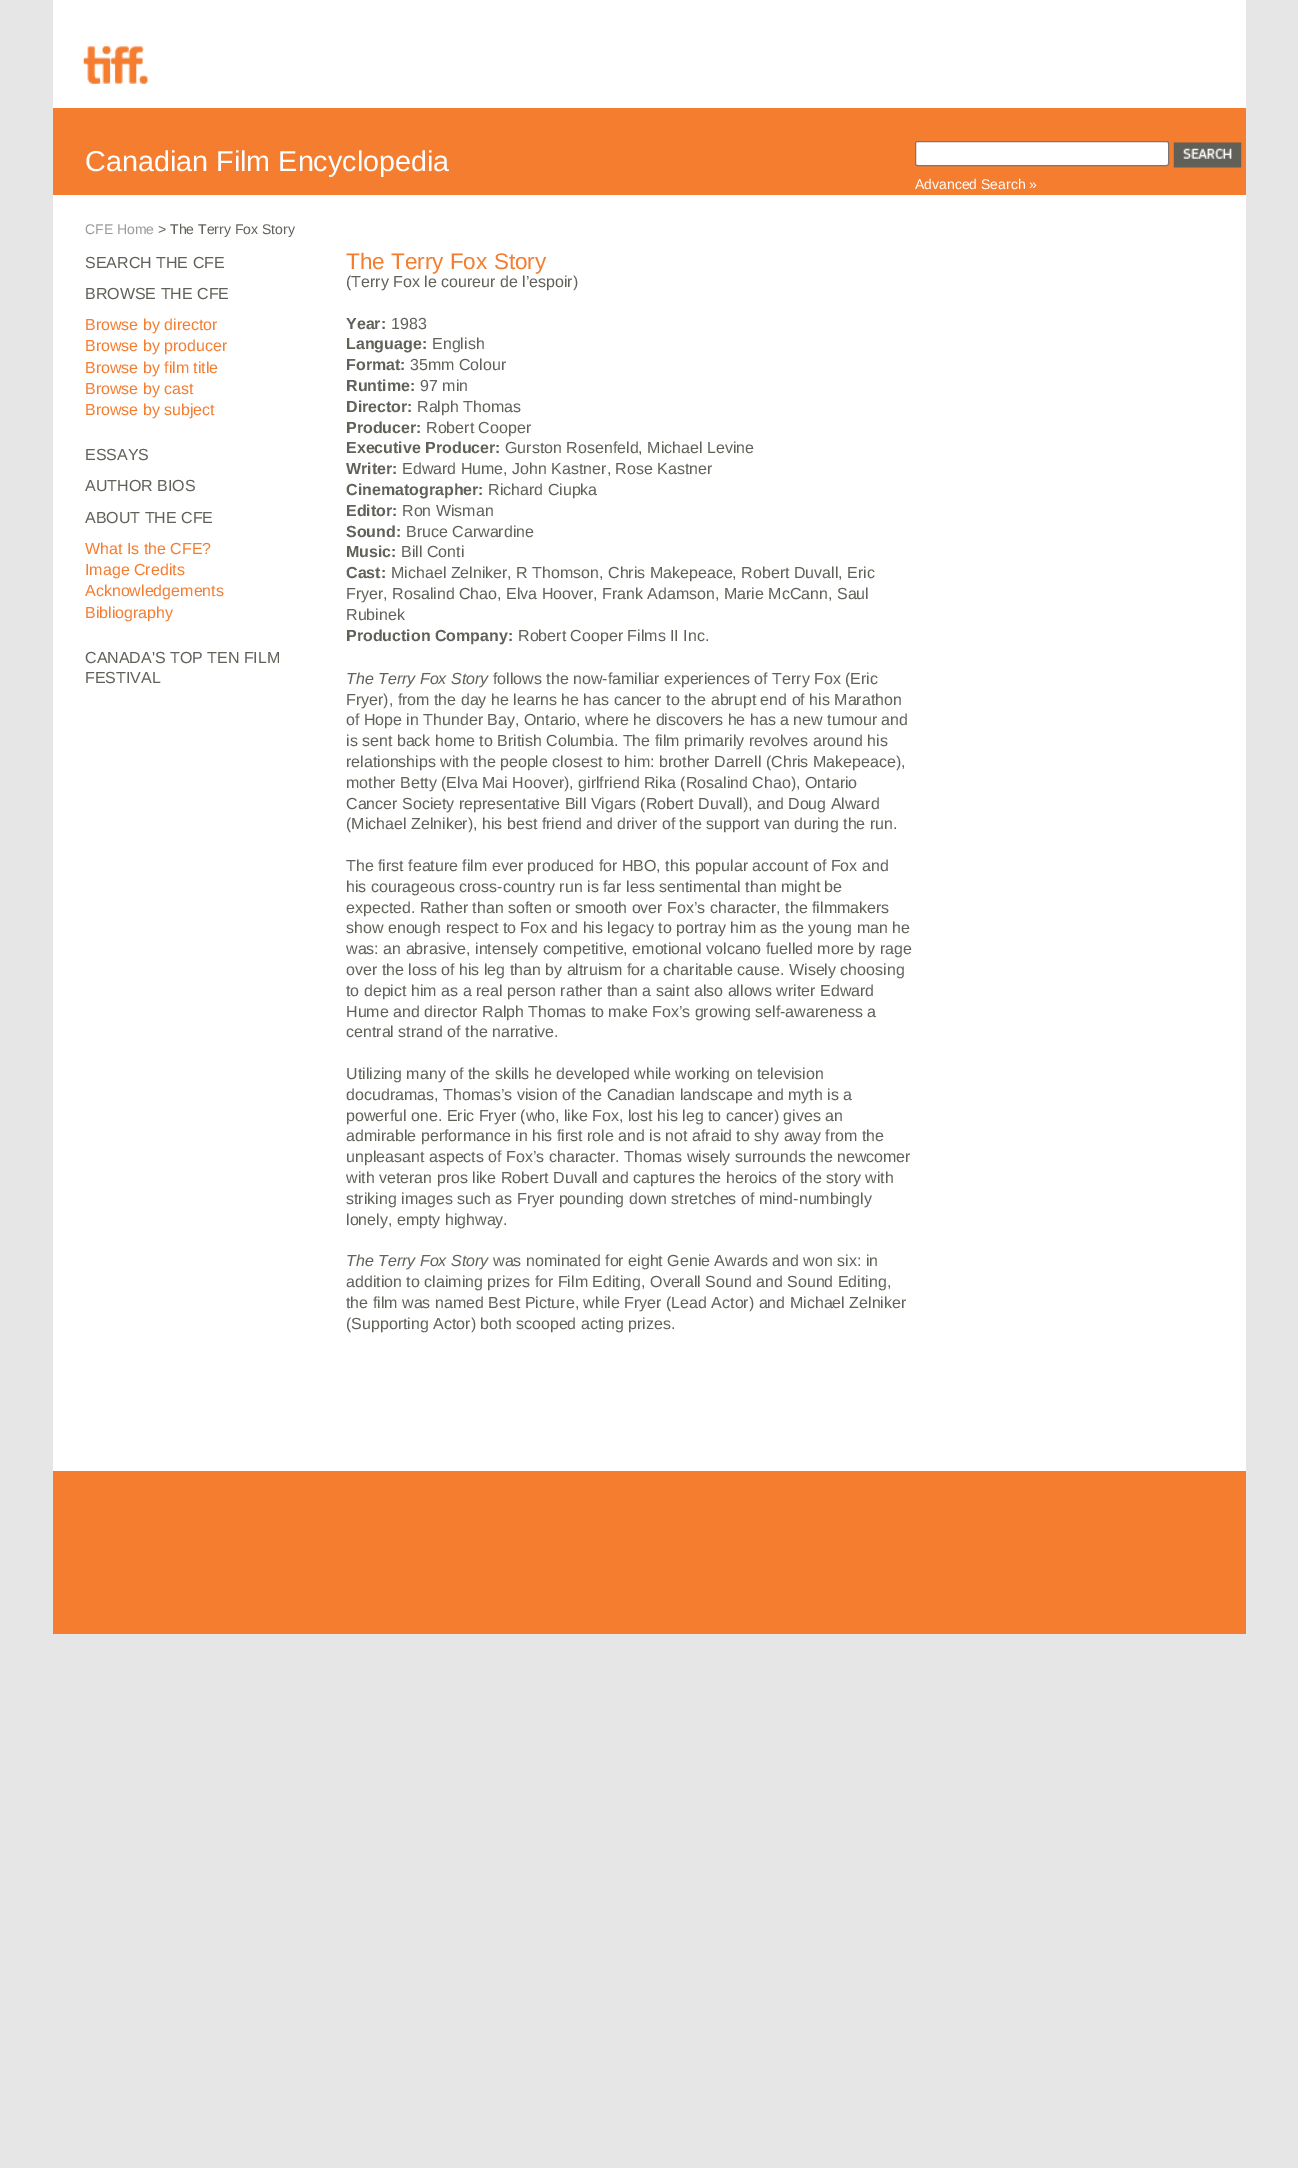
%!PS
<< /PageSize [1298 2168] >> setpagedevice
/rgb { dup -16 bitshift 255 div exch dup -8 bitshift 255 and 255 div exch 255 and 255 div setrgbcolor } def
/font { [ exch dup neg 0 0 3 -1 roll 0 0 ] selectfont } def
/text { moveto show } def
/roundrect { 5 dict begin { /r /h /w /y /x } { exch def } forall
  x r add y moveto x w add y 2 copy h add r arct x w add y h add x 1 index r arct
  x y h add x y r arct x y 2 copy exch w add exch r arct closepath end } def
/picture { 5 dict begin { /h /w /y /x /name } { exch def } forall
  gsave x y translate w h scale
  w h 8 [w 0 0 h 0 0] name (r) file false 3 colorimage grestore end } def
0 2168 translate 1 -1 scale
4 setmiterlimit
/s1 { /LiberationSans-Regular 28.75 font 16#FFFFFF rgb } def
/s2 { /LiberationSans-Regular 14 font 16#FFFFFF rgb } def
/s3 { /LiberationSans-Regular 14 font 16#999999 rgb } def
/s4 { /LiberationSans-Regular 14 font 16#616059 rgb } def
/s5 { /LiberationSans-Regular 16 font 16#616059 rgb } def
/s6 { /LiberationSans-Regular 16 font 16#F47D30 rgb } def
/s7 { /LiberationSans-Regular 22.5 font 16#F47D30 rgb } def
/s8 { /LiberationSans-Bold 16 font 16#616059 rgb } def
/s9 { /LiberationSans-Italic 16 font 16#616059 rgb } def
16#E6E6E6 rgb
0 0 1298 2168 rectfill
16#FFFFFF rgb
53 0 1193 1471 rectfill
(pic1.raw) 83 46 65 38 picture
16#F47D30 rgb
53 108 1193 87 rectfill
s1
(Canadian Film Encyclopedia) 85 171 text
915.5 141.5 253 24 2 roundrect gsave fill grestore
16#767676 rgb
stroke
(pic2.raw) 1173 142 69 26 picture
s2
(Advanced Search ») 915 189 text
s3
(CFE Home) 85 234 text
s4
(> The Terry Fox Story) 158 234 text
s5
(SEARCH THE CFE) 85 268 text
(BROWSE THE CFE) 85 299 text
s6
(Browse by director) 85 330 text
(Browse by producer) 85 351 text
(Browse by film title) 85 373 text
(Browse by cast) 85 394 text
(Browse by subject) 85 415 text
s5
(ESSAYS) 85 460 text
(AUTHOR BIOS) 85 491 text
(ABOUT THE CFE) 85 523 text
s6
(What Is the CFE?) 85 554 text
(Image Credits) 85 575 text
(Acknowledgements) 85 596 text
(Bibliography) 85 618 text
s5
(CANADA'S TOP TEN FILM) 85 663 text
(FESTIVAL) 85 683 text
s7
(The Terry Fox Story) 346 269 text
s5
(\(Terry Fox le coureur de l’espoir\)) 346 287 text
s8
(Year:) 346 329 text
s5
(1983) 391 329 text
s8
(Language:) 346 349 text
s5
(English) 432 349 text
s8
(Format:) 346 370 text
s5
(35mm Colour) 410 370 text
s8
(Runtime:) 346 391 text
s5
(97 min) 420 391 text
s8
(Director:) 346 412 text
s5
(Ralph Thomas) 417 412 text
s8
(Producer:) 346 433 text
s5
(Robert Cooper) 426 433 text
s8
(Executive Producer:) 346 453 text
s5
(Gurston Rosenfeld, Michael Levine) 505 453 text
s8
(Writer:) 346 474 text
s5
(Edward Hume, John Kastner, Rose Kastner) 402 474 text
s8
(Cinematographer:) 346 495 text
s5
(Richard Ciupka) 488 495 text
s8
(Editor:) 346 516 text
s5
(Ron Wisman) 402 516 text
s8
(Sound:) 346 537 text
s5
(Bruce Carwardine) 406 537 text
s8
(Music:) 346 557 text
s5
(Bill Conti) 401 557 text
s8
(Cast:) 346 578 text
s5
(Michael Zelniker, R Thomson, Chris Makepeace, Robert Duvall, Eric) 391 578 text
(Fryer, Rosalind Chao, Elva Hoover, Frank Adamson, Marie McCann, Saul) 346 599 text
(Rubinek) 346 620 text
s8
(Production Company:) 346 641 text
s5
(Robert Cooper Films II Inc.) 518 641 text
s9
(The Terry Fox Story) 346 684 text
s5
(follows the now-familiar experiences of Terry Fox \(Eric) 493 684 text
(Fryer\), from the day he learns he has cancer to the abrupt end of his Marathon) 346 705 text
(of Hope in Thunder Bay, Ontario, where he discovers he has a new tumour and) 346 725 text
(is sent back home to British Columbia. The film primarily revolves around his) 346 746 text
(relationships with the people closest to him: brother Darrell \(Chris Makepeace\),) 346 767 text
(mother Betty \(Elva Mai Hoover\), girlfriend Rika \(Rosalind Chao\), Ontario) 346 788 text
(Cancer Society representative Bill Vigars \(Robert Duvall\), and Doug Alward) 346 809 text
(\(Michael Zelniker\), his best friend and driver of the support van during the run.) 346 829 text
(The first feature film ever produced for HBO, this popular account of Fox and) 346 871 text
(his courageous cross-country run is far less sentimental than might be) 346 892 text
(expected. Rather than soften or smooth over Fox’s character, the filmmakers) 346 913 text
(show enough respect to Fox and his legacy to portray him as the young man he) 346 933 text
(was: an abrasive, intensely competitive, emotional volcano fuelled more by rage) 346 954 text
(over the loss of his leg than by altruism for a charitable cause. Wisely choosing) 346 975 text
(to depict him as a real person rather than a saint also allows writer Edward) 346 996 text
(Hume and director Ralph Thomas to make Fox’s growing self-awareness a) 346 1017 text
(central strand of the narrative.) 346 1037 text
(Utilizing many of the skills he developed while working on television) 346 1079 text
(docudramas, Thomas’s vision of the Canadian landscape and myth is a) 346 1100 text
(powerful one. Eric Fryer \(who, like Fox, lost his leg to cancer\) gives an) 346 1121 text
(admirable performance in his first role and is not afraid to shy away from the) 346 1141 text
(unpleasant aspects of Fox’s character. Thomas wisely surrounds the newcomer) 346 1162 text
(with veteran pros like Robert Duvall and captures the heroics of the story with) 346 1183 text
(striking images such as Fryer pounding down stretches of mind-numbingly) 346 1204 text
(lonely, empty highway.) 346 1225 text
s9
(The Terry Fox Story) 346 1266 text
s5
(was nominated for eight Genie Awards and won six: in) 493 1266 text
(addition to claiming prizes for Film Editing, Overall Sound and Sound Editing,) 346 1287 text
(the film was named Best Picture, while Fryer \(Lead Actor\) and Michael Zelniker) 346 1308 text
(\(Supporting Actor\) both scooped acting prizes.) 346 1329 text
16#F47D30 rgb
53 1471 1193 163 rectfill
showpage
